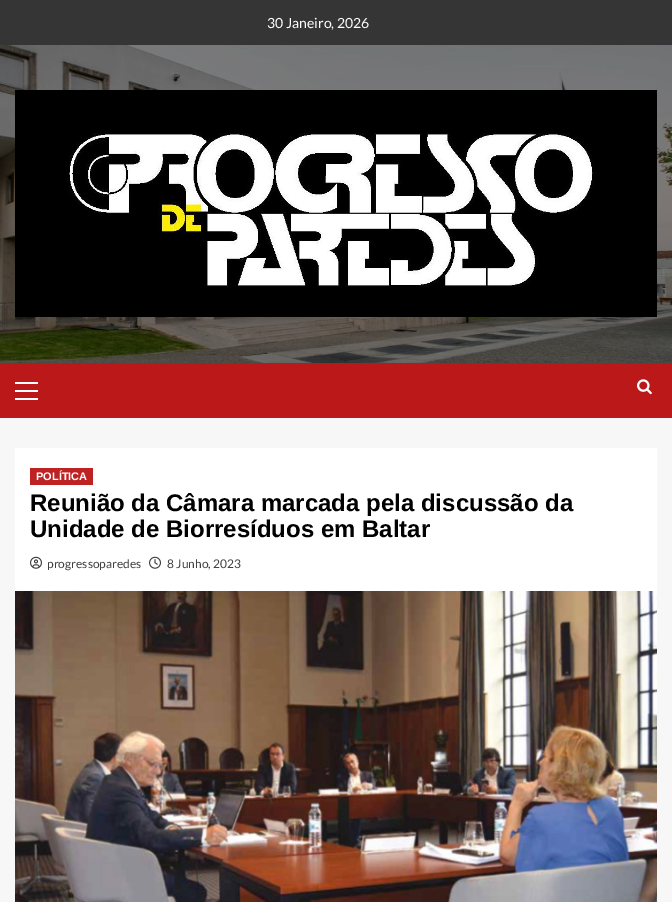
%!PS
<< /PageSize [672 902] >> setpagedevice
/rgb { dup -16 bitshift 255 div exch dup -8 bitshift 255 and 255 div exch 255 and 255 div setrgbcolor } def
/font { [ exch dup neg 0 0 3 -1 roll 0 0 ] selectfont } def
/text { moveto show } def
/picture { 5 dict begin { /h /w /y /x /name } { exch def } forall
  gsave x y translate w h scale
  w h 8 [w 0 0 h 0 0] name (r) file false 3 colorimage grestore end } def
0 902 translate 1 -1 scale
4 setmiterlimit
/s1 { /Lato-Regular 14 font 16#FFFFFF rgb } def
/s2 { /LiberationSans-Bold 11 font 16#FFFFFF rgb } def
/s3 { /LiberationSans-Bold 24 font 16#000000 rgb } def
/s4 { /Lato-Regular 12 font 16#404040 rgb } def
16#F7F7F7 rgb
0 0 672 902 rectfill
16#353535 rgb
0 0 672 45 rectfill
s1
(30 Janeiro, 2026) 267 28 text
(pic1.raw) 0 45 672 318 picture
(pic2.raw) 15 90 642 227 picture
16#BB1919 rgb
0 363 672 55 rectfill
16#FFFFFF rgb
15 390 23 2 rectfill
15 382 23 2 rectfill
15 398 23 2 rectfill
(pic3.raw) 637 379 15 16 picture
15 448 642 143 rectfill
16#BE2222 rgb
30 468 63 17 rectfill
s2
(POLÍTICA) 36 480 text
s3
(Reunião da Câmara marcada pela discussão da) 30 511 text
(Unidade de Biorresíduos em Baltar) 30 537 text
(pic4.raw) 30 556 12 13 picture
s4
(progressoparedes) 47 568 text
(pic5.raw) 149 556 12 13 picture
(8 Junho, 2023) 167 568 text
(pic6.raw) 15 591 642 311 picture
showpage
